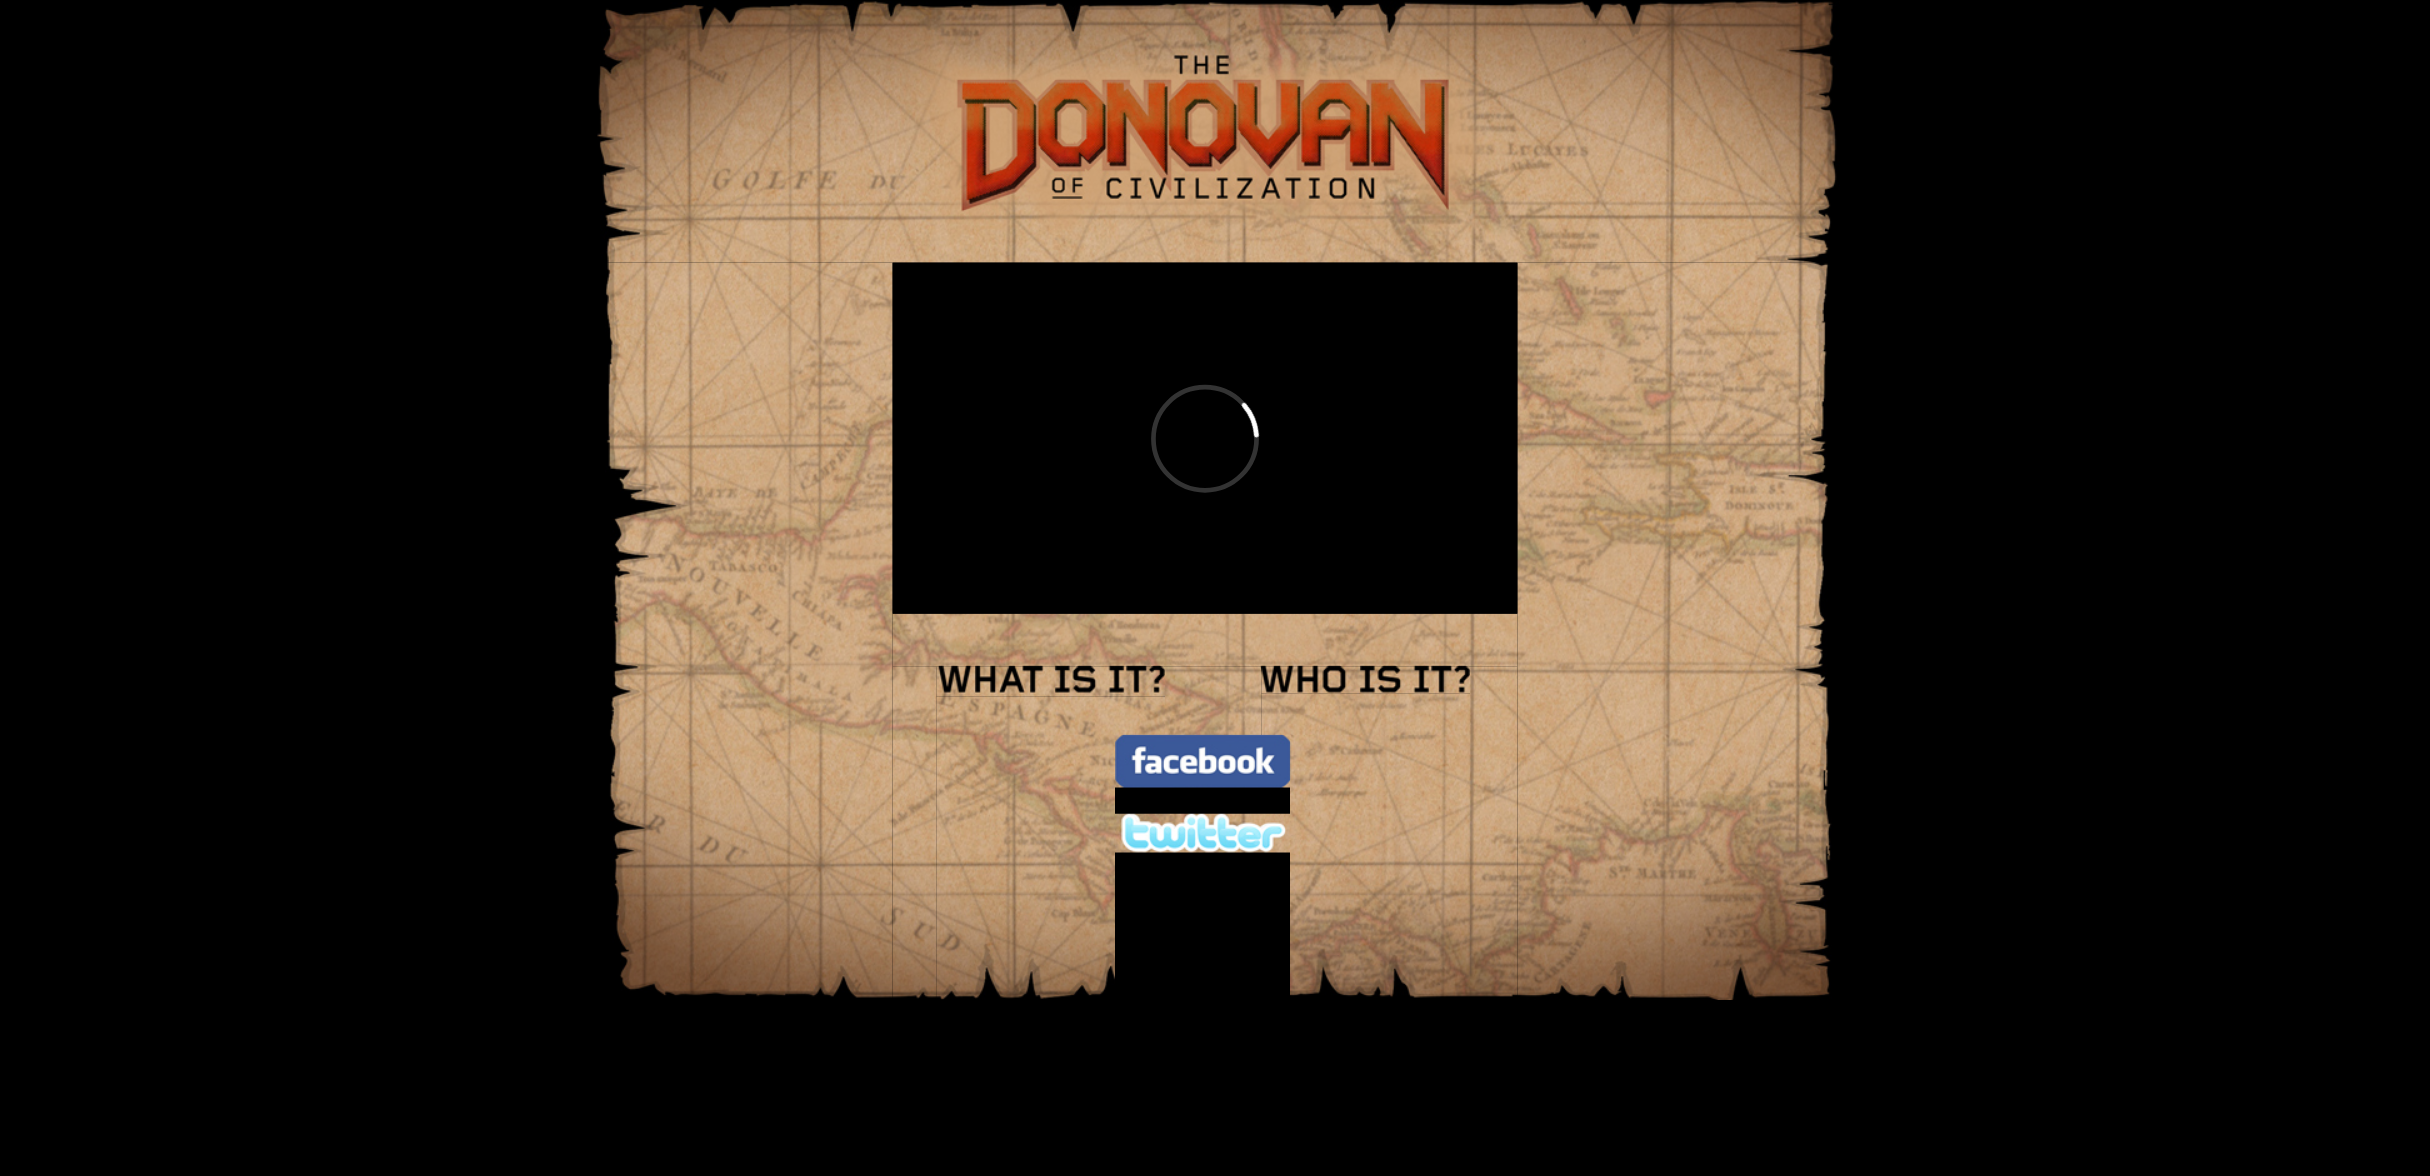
%!PS
<< /PageSize [2430 1176] >> setpagedevice
/rgb { dup -16 bitshift 255 div exch dup -8 bitshift 255 and 255 div exch 255 and 255 div setrgbcolor } def
/picture { 5 dict begin { /h /w /y /x /name } { exch def } forall
  gsave x y translate w h scale
  w h 8 [w 0 0 h 0 0] name (r) file false 3 colorimage grestore end } def
0 1176 translate 1 -1 scale
4 setmiterlimit
16#000000 rgb
0 0 2430 1176 rectfill
(pic1.raw) 597 1 1243 262 picture
(pic2.raw) 605 262 288 736 picture
(pic4.raw) 1517 262 315 738 picture
(pic5.raw) 892 613 626 54 picture
(pic3.raw) 892 262 626 352 picture
(pic6.raw) 892 666 45 333 picture
(pic7.raw) 936 666 229 31 picture
(pic8.raw) 1165 666 97 69 picture
(pic9.raw) 1261 666 209 28 picture
(pic10.raw) 1470 666 48 331 picture
(pic11.raw) 936 696 229 39 picture
(pic12.raw) 1261 693 209 42 picture
(pic13.raw) 936 735 179 265 picture
(pic14.raw) 1115 735 175 53 picture
(pic15.raw) 1290 735 180 263 picture
(pic16.raw) 1115 813 175 40 picture
showpage
